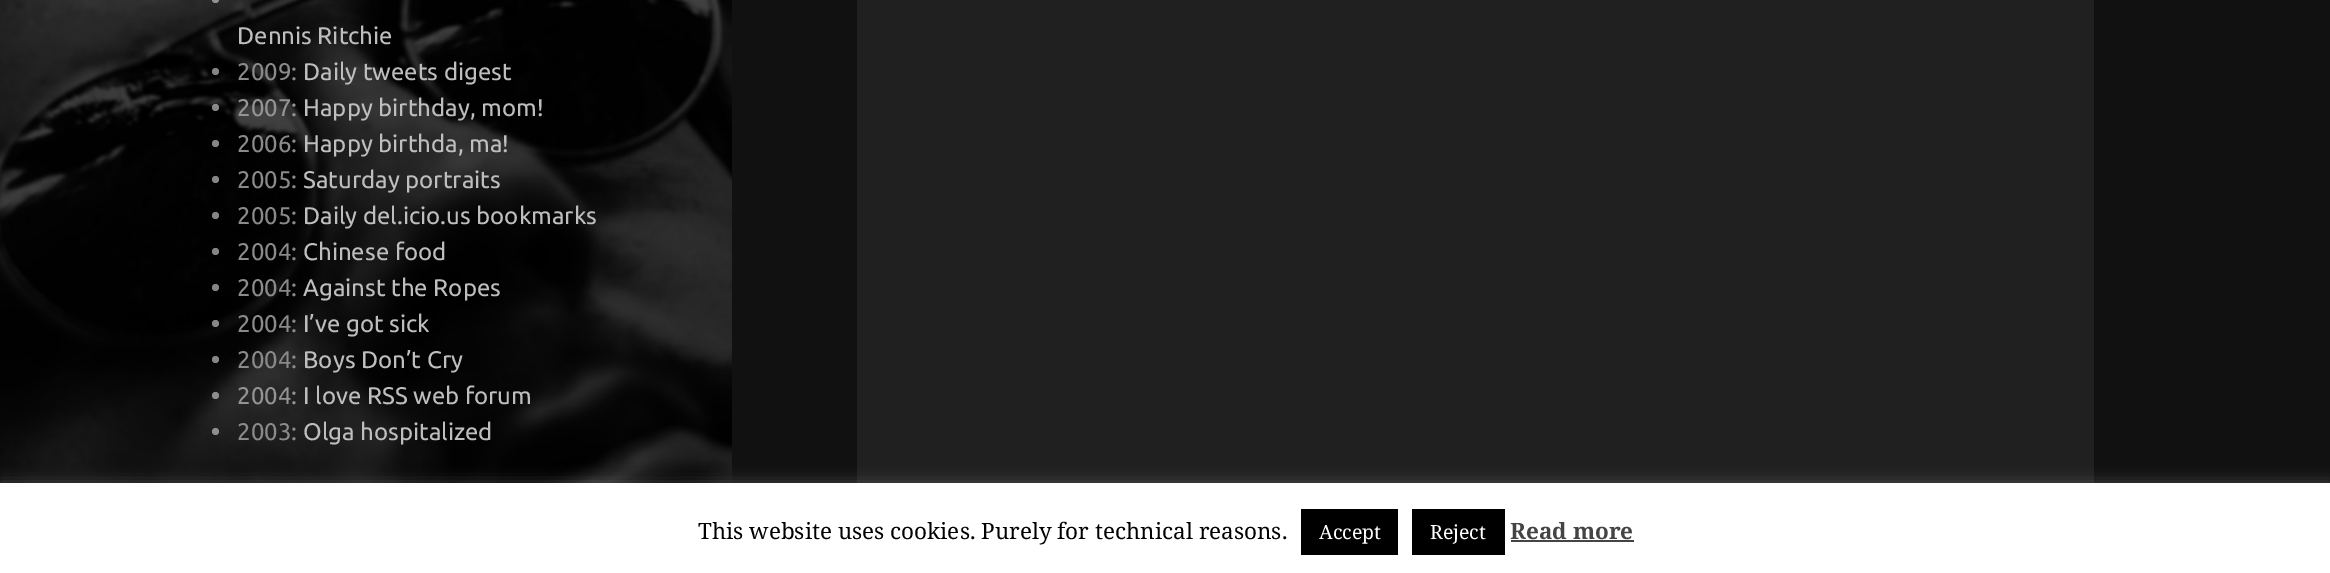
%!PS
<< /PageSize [2330 573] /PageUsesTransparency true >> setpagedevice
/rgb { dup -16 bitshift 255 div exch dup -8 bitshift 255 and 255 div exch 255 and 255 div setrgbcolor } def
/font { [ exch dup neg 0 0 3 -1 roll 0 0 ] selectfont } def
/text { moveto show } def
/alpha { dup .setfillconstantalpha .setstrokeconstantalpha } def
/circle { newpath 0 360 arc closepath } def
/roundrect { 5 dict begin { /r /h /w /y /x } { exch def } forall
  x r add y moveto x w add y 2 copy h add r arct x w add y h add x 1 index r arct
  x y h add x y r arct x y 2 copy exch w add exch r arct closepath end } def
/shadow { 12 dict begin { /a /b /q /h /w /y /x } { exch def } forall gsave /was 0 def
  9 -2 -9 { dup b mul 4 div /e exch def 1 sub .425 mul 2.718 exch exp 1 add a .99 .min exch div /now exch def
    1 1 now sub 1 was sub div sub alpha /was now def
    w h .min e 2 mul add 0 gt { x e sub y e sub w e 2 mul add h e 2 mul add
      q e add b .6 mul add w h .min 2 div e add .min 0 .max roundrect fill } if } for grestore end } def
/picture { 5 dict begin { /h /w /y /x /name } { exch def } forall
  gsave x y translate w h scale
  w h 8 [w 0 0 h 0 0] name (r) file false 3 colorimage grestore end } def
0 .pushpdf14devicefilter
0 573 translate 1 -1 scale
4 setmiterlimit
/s1 { /Ubuntu-Regular 24 font 16#BEBEBE rgb } def
/s2 { /Ubuntu-Regular 24 font 16#8A8A8A rgb } def
/s3 { /Ubuntu-Regular 24 font 16#949494 rgb } def
/s4 { /NotoSerif-Regular 22.5 font 16#000000 rgb } def
/s5 { /NotoSerif-Regular 19.5 font 16#FFFFFF rgb } def
/s6 { /NotoSerif-Bold 22.5 font 16#444444 rgb } def
16#111111 rgb
0 0 2330 573 rectfill
(pic1.raw) 0 0 732 483 picture
0.7 alpha
16#BEBEBE rgb
215.5 -0.5 3.5 circle fill
1 alpha
s1
(Dennis Ritchie) 237 44 text
16#858585 rgb
215.5 71.5 3.5 circle fill
s2
(2009:) 237 80 text
s1
(Daily tweets digest) 303 80 text
0.7 alpha
215.5 107.5 3.5 circle fill
1 alpha
s3
(2007:) 237 116 text
s1
(Happy birthday, mom!) 303 116 text
16#858585 rgb
215.5 143.5 3.5 circle fill
s2
(2006:) 237 152 text
s1
(Happy birthda, ma!) 303 152 text
16#858585 rgb
215.5 179.5 3.5 circle fill
s2
(2005:) 237 188 text
s1
(Saturday portraits) 303 188 text
16#858585 rgb
215.5 215.5 3.5 circle fill
s2
(2005:) 237 224 text
s1
(Daily del.icio.us bookmarks) 303 224 text
16#858585 rgb
215.5 251.5 3.5 circle fill
s2
(2004:) 237 260 text
s1
(Chinese food) 303 260 text
16#858585 rgb
215.5 287.5 3.5 circle fill
s2
(2004:) 237 296 text
s1
(Against the Ropes) 303 296 text
0.7 alpha
215.5 323.5 3.5 circle fill
1 alpha
s2
(2004:) 237 332 text
s1
(I’ve got sick) 303 332 text
16#868686 rgb
215.5 359.5 3.5 circle fill
s2
(2004:) 237 368 text
s1
(Boys Don’t Cry) 303 368 text
0.7 alpha
215.5 395.5 3.5 circle fill
1 alpha
s3
(2004:) 237 404 text
s1
(I love RSS web forum) 303 404 text
0.7 alpha
215.5 431.5 3.5 circle fill
1 alpha
s2
(2003:) 237 440 text
s1
(Olga hospitalized) 303 440 text
16#202020 rgb
857 0 1237 483 rectfill
16#ACABAB rgb
0 482 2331 90 0 7.5 0.3 shadow
16#FFFFFF rgb
0 483 2330 90 rectfill
s4
(This website uses cookies. Purely for technical reasons.) 698 539 text
1301 509 97 46 rectfill
s5
(Accept) 1319 539 text
16#000000 rgb
1412 509 93 46 rectfill
s5
(Reject) 1430 539 text
s6
(Read more) 1510 539 text
1511 540 123 2 rectfill
.poppdf14devicefilter showpage
